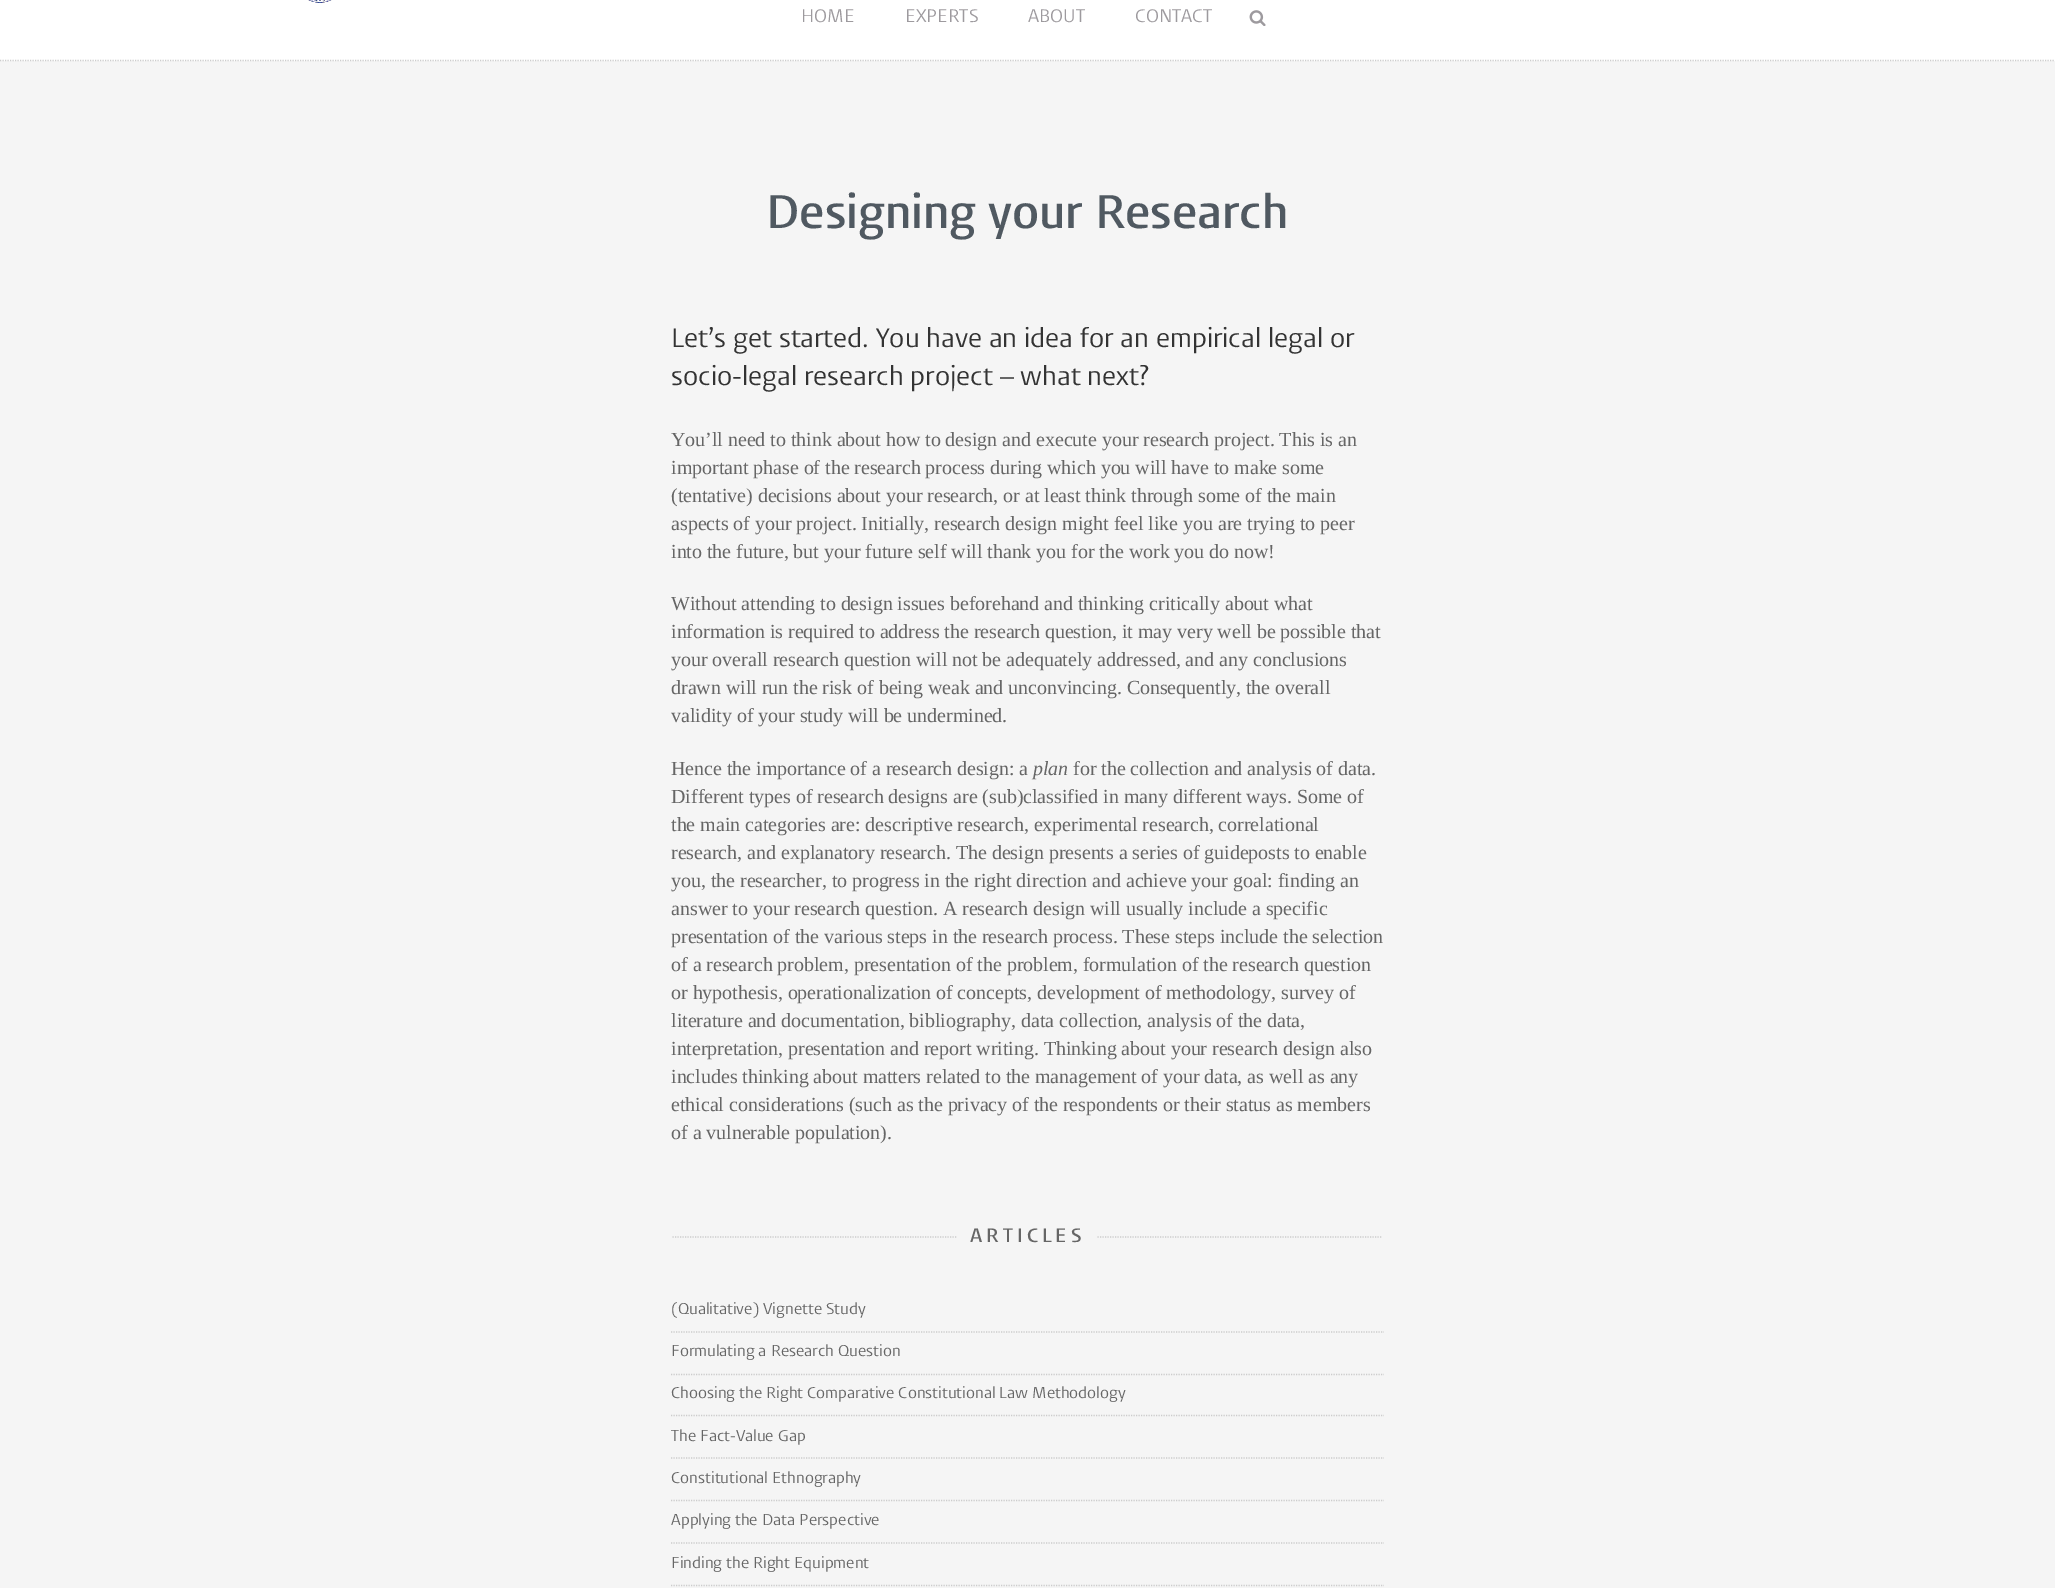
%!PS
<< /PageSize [2055 1588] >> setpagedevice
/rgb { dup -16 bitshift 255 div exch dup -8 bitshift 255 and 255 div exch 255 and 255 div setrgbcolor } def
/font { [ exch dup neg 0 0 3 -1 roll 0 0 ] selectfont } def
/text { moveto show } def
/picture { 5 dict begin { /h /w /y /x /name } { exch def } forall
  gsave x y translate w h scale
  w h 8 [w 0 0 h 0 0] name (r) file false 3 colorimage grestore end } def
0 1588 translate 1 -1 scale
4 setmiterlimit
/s1 { /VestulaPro-Regular 18.75 font 16#9D9A9E rgb } def
/s2 { /VestulaPro-SemiBold 48.75 font 16#505961 rgb } def
/s3 { /VestulaPro-Regular 27.5 font 16#333333 rgb } def
/s4 { /VestulaPro-Regular 16.25 font 16#666666 rgb } def
16#F5F5F5 rgb
0 0 2055 1588 rectfill
16#FFFFFF rgb
0 0 2055 61 rectfill
16#CCCCCC rgb
1.2 setlinewidth
[1.25 1.25] 0 setdash
0 60.5 moveto 2055 60.5 lineto stroke
(pic1.raw) 308 0 24 3 picture
s1
(HOME) 801 22 text
(EXPERTS) 905 22 text
(ABOUT) 1028 22 text
(CONTACT) 1135 22 text
(pic2.raw) 1249 10 17 16 picture
s2
(Designing your Research) 766 228 text
s3
(Let’s get started. You have an idea for an empirical legal or) 671 347 text
(socio-legal research project – what next?) 671 385 text
/LiberationSerif-Regular 20 font
16#666666 rgb
671 446 moveto -0.05 0 (You’ll need to think about how to design and execute your research project. This is an) ashow
671 474 moveto -0.05 0 (important phase of the research process during which you will have to make some) ashow
671 502 moveto -0.05 0 (\(tentative\) decisions about your research, or at least think through some of the main) ashow
671 530 moveto -0.05 0 (aspects of your project. Initially, research design might feel like you are trying to peer) ashow
671 558 moveto -0.05 0 (into the future, but your future self will thank you for the work you do now!) ashow
671 610 moveto -0.05 0 (Without attending to design issues beforehand and thinking critically about what) ashow
671 638 moveto -0.05 0 (information is required to address the research question, it may very well be possible that) ashow
671 666 moveto -0.05 0 (your overall research question will not be adequately addressed, and any conclusions) ashow
671 694 moveto -0.05 0 (drawn will run the risk of being weak and unconvincing. Consequently, the overall) ashow
671 722 moveto -0.05 0 (validity of your study will be undermined.) ashow
671 775 moveto -0.05 0 (Hence the importance of a research design: a) ashow
/LiberationSerif-Italic 20 font
1033 775 moveto -0.05 0 (plan) ashow
/LiberationSerif-Regular 20 font
1073 775 moveto -0.05 0 (for the collection and analysis of data.) ashow
671 803 moveto -0.05 0 (Different types of research designs are \(sub\)classified in many different ways. Some of) ashow
671 831 moveto -0.05 0 (the main categories are: descriptive research, experimental research, correlational) ashow
671 859 moveto -0.05 0 (research, and explanatory research. The design presents a series of guideposts to enable) ashow
671 887 moveto -0.05 0 (you, the researcher, to progress in the right direction and achieve your goal: finding an) ashow
671 915 moveto -0.05 0 (answer to your research question. A research design will usually include a specific) ashow
671 943 moveto -0.05 0 (presentation of the various steps in the research process. These steps include the selection) ashow
671 971 moveto -0.05 0 (of a research problem, presentation of the problem, formulation of the research question) ashow
671 999 moveto -0.05 0 (or hypothesis, operationalization of concepts, development of methodology, survey of) ashow
671 1027 moveto -0.05 0 (literature and documentation, bibliography, data collection, analysis of the data,) ashow
671 1055 moveto -0.05 0 (interpretation, presentation and report writing. Thinking about your research design also) ashow
671 1083 moveto -0.05 0 (includes thinking about matters related to the management of your data, as well as any) ashow
671 1111 moveto -0.05 0 (ethical considerations \(such as the privacy of the respondents or their status as members) ashow
671 1139 moveto -0.05 0 (of a vulnerable population\).) ashow
16#CCCCCC rgb
672.5 1237 moveto 957.5 1237 lineto stroke
/VestulaPro-SemiBold 20 font
16#666666 rgb
970 1242 moveto 4 0 (ARTICLES) ashow
16#CCCCCC rgb
1097.5 1237 moveto 1382.5 1237 lineto stroke
671 1332 moveto 1384 1332 lineto stroke
s4
(\(Qualitative\) Vignette Study) 671 1314 text
16#CCCCCC rgb
671 1374.5 moveto 1384 1374.5 lineto stroke
s4
(Formulating a Research Question) 671 1356 text
16#CCCCCC rgb
671 1415.5 moveto 1384 1415.5 lineto stroke
s4
(Choosing the Right Comparative Constitutional Law Methodology) 671 1398 text
16#CCCCCC rgb
671 1458 moveto 1384 1458 lineto stroke
s4
(The Fact-Value Gap) 671 1441 text
16#CCCCCC rgb
671 1500.5 moveto 1384 1500.5 lineto stroke
s4
(Constitutional Ethnography) 671 1483 text
16#CCCCCC rgb
671 1543 moveto 1384 1543 lineto stroke
s4
(Applying the Data Perspective) 671 1525 text
16#CCCCCC rgb
671 1585.5 moveto 1384 1585.5 lineto stroke
s4
(Finding the Right Equipment) 671 1568 text
showpage
